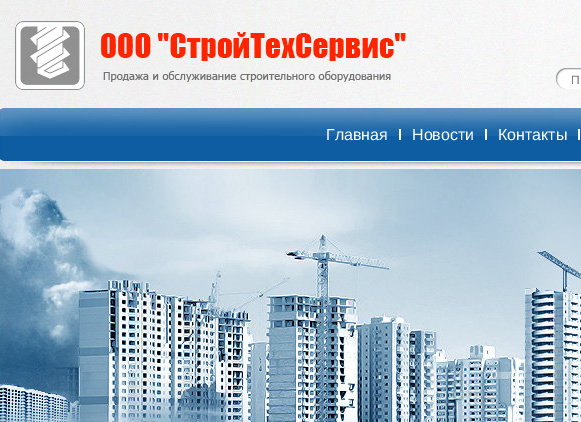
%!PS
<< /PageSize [581 422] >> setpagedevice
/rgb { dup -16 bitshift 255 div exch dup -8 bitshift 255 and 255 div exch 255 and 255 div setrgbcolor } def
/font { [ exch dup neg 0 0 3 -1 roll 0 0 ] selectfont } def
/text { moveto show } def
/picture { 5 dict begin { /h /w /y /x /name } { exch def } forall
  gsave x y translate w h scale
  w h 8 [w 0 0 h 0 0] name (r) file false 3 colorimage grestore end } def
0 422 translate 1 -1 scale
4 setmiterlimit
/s1 { /LiberationSans-Regular 12 font 16#7D7C7C rgb } def
/s2 { /LiberationSans-Regular 16 font 16#FFFFFF rgb } def
16#FFFFFF rgb
0 0 581 422 rectfill
(pic1.raw) 0 0 581 422 picture
(pic2.raw) 15 21 70 69 picture
(pic3.raw) 101 32 305 50 picture
(pic4.raw) 556 68 25 21 picture
s1
(П) 571 84 text
s2
(Главная) 326 140 text
16#FEFEFF rgb
399 129 2 11 rectfill
s2
(Новости) 412 140 text
16#FEFEFF rgb
485 129 2 11 rectfill
s2
(Контакты) 498 140 text
16#FEFEFF rgb
578 129 2 11 rectfill
showpage
